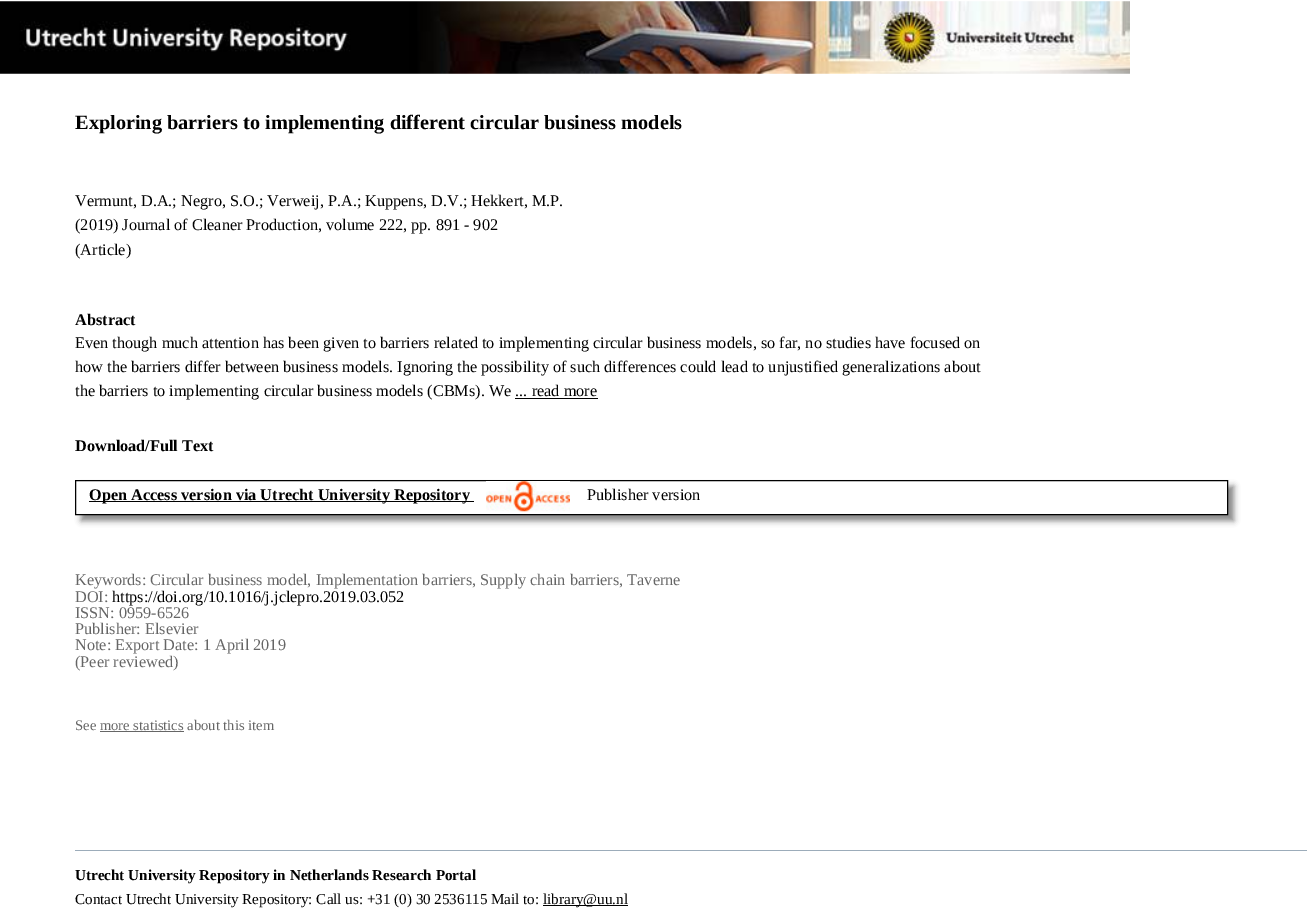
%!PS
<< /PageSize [1307 916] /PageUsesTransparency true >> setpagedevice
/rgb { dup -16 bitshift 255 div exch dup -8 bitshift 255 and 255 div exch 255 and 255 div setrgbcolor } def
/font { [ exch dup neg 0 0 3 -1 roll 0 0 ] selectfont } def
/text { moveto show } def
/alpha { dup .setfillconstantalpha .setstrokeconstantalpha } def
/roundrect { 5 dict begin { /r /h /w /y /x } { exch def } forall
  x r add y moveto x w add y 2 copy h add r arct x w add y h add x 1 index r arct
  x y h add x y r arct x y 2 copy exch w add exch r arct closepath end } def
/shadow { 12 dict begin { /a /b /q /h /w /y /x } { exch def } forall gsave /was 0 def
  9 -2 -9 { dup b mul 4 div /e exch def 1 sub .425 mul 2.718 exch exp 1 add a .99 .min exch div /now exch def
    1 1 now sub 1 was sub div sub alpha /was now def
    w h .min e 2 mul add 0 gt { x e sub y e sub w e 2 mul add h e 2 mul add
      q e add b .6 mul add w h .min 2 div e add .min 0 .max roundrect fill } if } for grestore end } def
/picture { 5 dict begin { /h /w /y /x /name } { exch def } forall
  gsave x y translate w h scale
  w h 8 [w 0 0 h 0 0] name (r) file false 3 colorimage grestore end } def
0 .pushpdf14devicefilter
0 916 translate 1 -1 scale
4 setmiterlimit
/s1 { /LiberationSerif-Bold 20.3 font 16#000000 rgb } def
/s2 { /LiberationSerif-Regular 16.25 font 16#000000 rgb } def
/s3 { /LiberationSerif-Bold 16.25 font 16#000000 rgb } def
/s4 { /LiberationSerif-Regular 16.25 font 16#666666 rgb } def
/s5 { /LiberationSerif-Regular 14.6 font 16#666666 rgb } def
/s6 { /LiberationSerif-Bold 15.1 font 16#000000 rgb } def
/s7 { /LiberationSerif-Regular 15.1 font 16#000000 rgb } def
16#FFFFFF rgb
0 0 1307 916 rectfill
(pic1.raw) 0 1 1130 73 picture
s1
(Exploring barriers to implementing different circular business models) 75 129 text
s2
(Vermunt, D.A.; Negro, S.O.; Verweij, P.A.; Kuppens, D.V.; Hekkert, M.P.) 75 206 text
(\(2019\) Journal of Cleaner Production, volume 222, pp. 891 - 902) 75 230 text
(\(Article\)) 75 255 text
s3
(Abstract) 75 325 text
s2
(Even though much attention has been given to barriers related to implementing circular business models, so far, no studies have focused on) 75 348 text
(how the barriers differ between business models. Ignoring the possibility of such differences could lead to unjustified generalizations about) 75 372 text
(the barriers to implementing circular business models \(CBMs\). We ... read more) 75 396 text
515 398 83 1 rectfill
s3
(Download/Full Text) 75 451 text
gsave
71 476 moveto 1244 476 lineto 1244 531 lineto 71 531 lineto closepath 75 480 moveto 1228 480 lineto 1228 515 lineto 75 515 lineto closepath eoclip newpath
16#888888 rgb
81 486 1153 35 0 3 1 shadow
grestore
75.5 480.5 1152 34 rectstroke
89 501 385 1 rectfill
(Open Access version via Utrecht University Repository) 89 500 text
(pic2.raw) 486 481 84 31 picture
s2
(Publisher version) 587 500 text
s4
(Keywords: Circular business model, Implementation barriers, Supply chain barriers, Taverne) 75 585 text
(DOI:) 75 602 text
s2
(https://doi.org/10.1016/j.jclepro.2019.03.052) 112 602 text
s4
(ISSN: 0959-6526) 75 618 text
(Publisher: Elsevier) 75 634 text
(Note: Export Date: 1 April 2019) 75 650 text
(\(Peer reviewed\)) 75 667 text
s5
(See more statistics about this item) 75 730 text
100 731 84 1 rectfill
16#9CACBA rgb
75 850 1232 1 rectfill
s6
(Utrecht University Repository in Netherlands Research Portal) 75 880 text
s7
(Contact Utrecht University Repository: Call us: +31 \(0\) 30 2536115 Mail to:) 75 904 text
543 905 85 1 rectfill
(library@uu.nl) 543 904 text
.poppdf14devicefilter showpage
